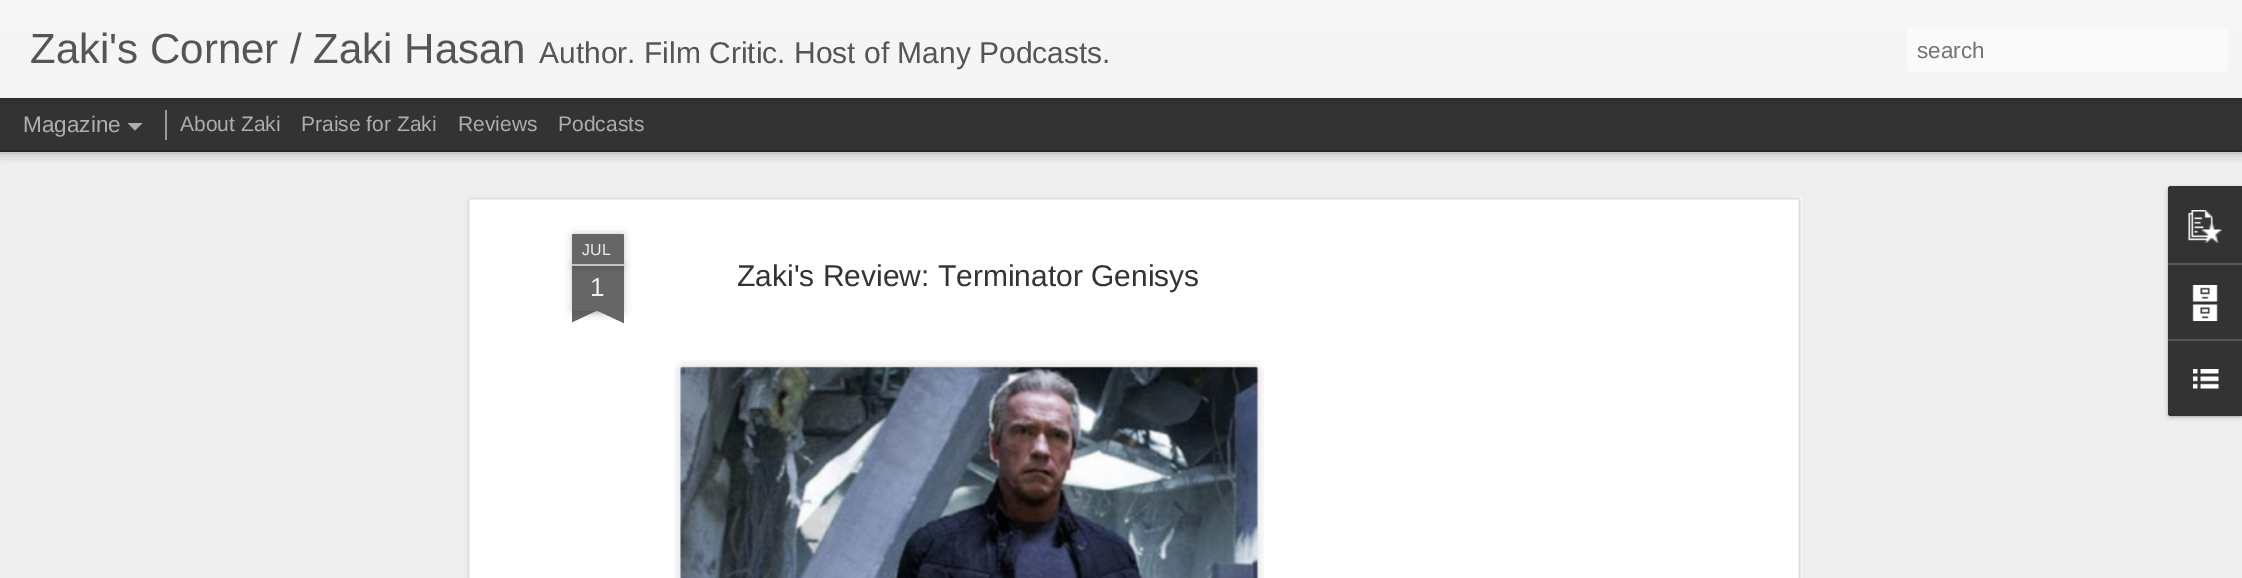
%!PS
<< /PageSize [2242 578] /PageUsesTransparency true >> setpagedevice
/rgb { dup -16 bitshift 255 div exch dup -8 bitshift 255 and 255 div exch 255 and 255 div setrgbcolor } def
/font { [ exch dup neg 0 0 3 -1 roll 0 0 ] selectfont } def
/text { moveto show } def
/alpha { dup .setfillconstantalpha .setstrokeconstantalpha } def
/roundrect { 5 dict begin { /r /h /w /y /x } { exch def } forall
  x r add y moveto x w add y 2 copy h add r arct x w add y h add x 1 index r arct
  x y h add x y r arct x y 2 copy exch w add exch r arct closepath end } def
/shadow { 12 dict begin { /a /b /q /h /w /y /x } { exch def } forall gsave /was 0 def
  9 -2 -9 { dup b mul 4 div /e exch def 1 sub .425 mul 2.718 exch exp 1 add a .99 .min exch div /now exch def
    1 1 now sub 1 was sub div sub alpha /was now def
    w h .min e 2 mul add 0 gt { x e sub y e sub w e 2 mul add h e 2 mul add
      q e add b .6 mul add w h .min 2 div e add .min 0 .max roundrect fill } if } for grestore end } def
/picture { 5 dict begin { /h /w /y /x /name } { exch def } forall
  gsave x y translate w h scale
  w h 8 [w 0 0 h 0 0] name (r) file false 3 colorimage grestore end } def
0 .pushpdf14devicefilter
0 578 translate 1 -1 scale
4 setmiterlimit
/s1 { /LiberationSans-Regular 42 font 16#555555 rgb } def
/s2 { /LiberationSans-Regular 30 font 16#555555 rgb } def
/s3 { /LiberationSans-Regular 22.5 font 16#757575 rgb } def
/s4 { /LiberationSans-Regular 22.5 font 16#ADADAD rgb } def
/s5 { /LiberationSans-Regular 21 font 16#ADADAD rgb } def
/s6 { /LiberationSans-Regular 16 font 16#EEEEEE rgb } def
/s7 { /LiberationSans-Regular 26 font 16#EEEEEE rgb } def
/s8 { /LiberationSans-Regular 30 font 16#333333 rgb } def
16#333333 rgb
0 0 2242 578 rectfill
16#EEEEEE rgb
0 152 2242 426 rectfill
16#000000 rgb
0 98 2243 52 0 6 0.5 shadow
16#333333 rgb
0 98 2242 52 rectfill
16#999999 rgb
165 110 2 30 rectfill
16#000000 rgb
0 0 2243 98 0 4 0.3 shadow
gsave 0 0 moveto 2242 0 lineto 2242 98 lineto 0 98 lineto closepath clip newpath
<< /ShadingType 2 /ColorSpace /DeviceRGB /Coords [0 0 0 98] /Extend [true true] /Function << /FunctionType 2 /Domain [0 1] /C0 [0.969 0.969 0.969] /C1 [0.957 0.957 0.957] /N 1 >> >> shfill grestore
s1
(Zaki's Corner / Zaki Hasan) 30 63 text
s2
(Author. Film Critic. Host of Many Podcasts.) 539 63 text
16#FAFAFA rgb
1907 27 321 45 5 roundrect fill
s3
(search) 1917 58 text
s4
(Magazine) 23 132 text
127.5 123 moveto 142.5 123 lineto 135 130.5 lineto closepath fill
s5
(About Zaki) 180 131 text
(Praise for Zaki) 301 131 text
(Reviews) 458 131 text
(Podcasts) 558 131 text
16#FFFFFF rgb
467 197 1335 381 rectfill
(pic1.raw) 466 197 1336 381 picture
16#000000 rgb
572 266 52 45 0 4 0.2 shadow
16#666666 rgb
572 266 52 45 rectfill
16#000000 rgb
572 234 52 32 1.5 4 0.2 shadow
16#666666 rgb
573.5 234 moveto 622.5 234 lineto 623.5 234 624 234.5 624 235.5 curveto 624 266 lineto 572 266 lineto 572 235.5 lineto 572 234.5 572.5 234 573.5 234 curveto closepath fill
16#C2C2C2 rgb
572 264 52 2 rectfill
s6
(JUL) 582 255 text
s7
(1) 590 296 text
gsave
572 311 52 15 rectclip
16#000000 rgb
558 296 75 15 0 4 0.2 shadow
grestore
gsave
572 311 52 15 rectclip
16#666666 rgb
558 312 moveto 626 280 lineto 632 294 lineto 564 326 lineto closepath fill
grestore
gsave
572 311 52 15 rectclip
16#000000 rgb
563 296 75 15 0 4 0.2 shadow
grestore
gsave
572 311 52 15 rectclip
16#666666 rgb
568 280 moveto 636 312 lineto 630 326 lineto 562 294 lineto closepath fill
grestore
s8
(Zaki's Review: Terminator Genisys) 737 286 text
(pic2.raw) 674 360 590 218 picture
(pic3.raw) 680 366 579 212 picture
16#000000 rgb
2168 188 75 229 3 2 0.3 shadow
16#333333 rgb
2171 186 moveto 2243 186 lineto 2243 416 lineto 2171 416 lineto 2169.5 416 2168 414.5 2168 413 curveto 2168 189 lineto 2168 187.5 2169.5 186 2171 186 curveto closepath fill
2171 186 moveto 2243 186 lineto 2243 263 lineto 2168 263 lineto 2168 189 lineto 2168 187.5 2169.5 186 2171 186 curveto closepath fill
(pic4.raw) 2188 210 34 33 picture
16#585858 rgb
2168 263 74 2 rectfill
(pic5.raw) 2192 285 26 36 picture
16#333333 rgb
2168 339 moveto 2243 339 lineto 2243 416 lineto 2171 416 lineto 2169.5 416 2168 414.5 2168 413 curveto closepath fill
16#585858 rgb
2168 339 74 2 rectfill
(pic6.raw) 2193 369 26 20 picture
.poppdf14devicefilter showpage
